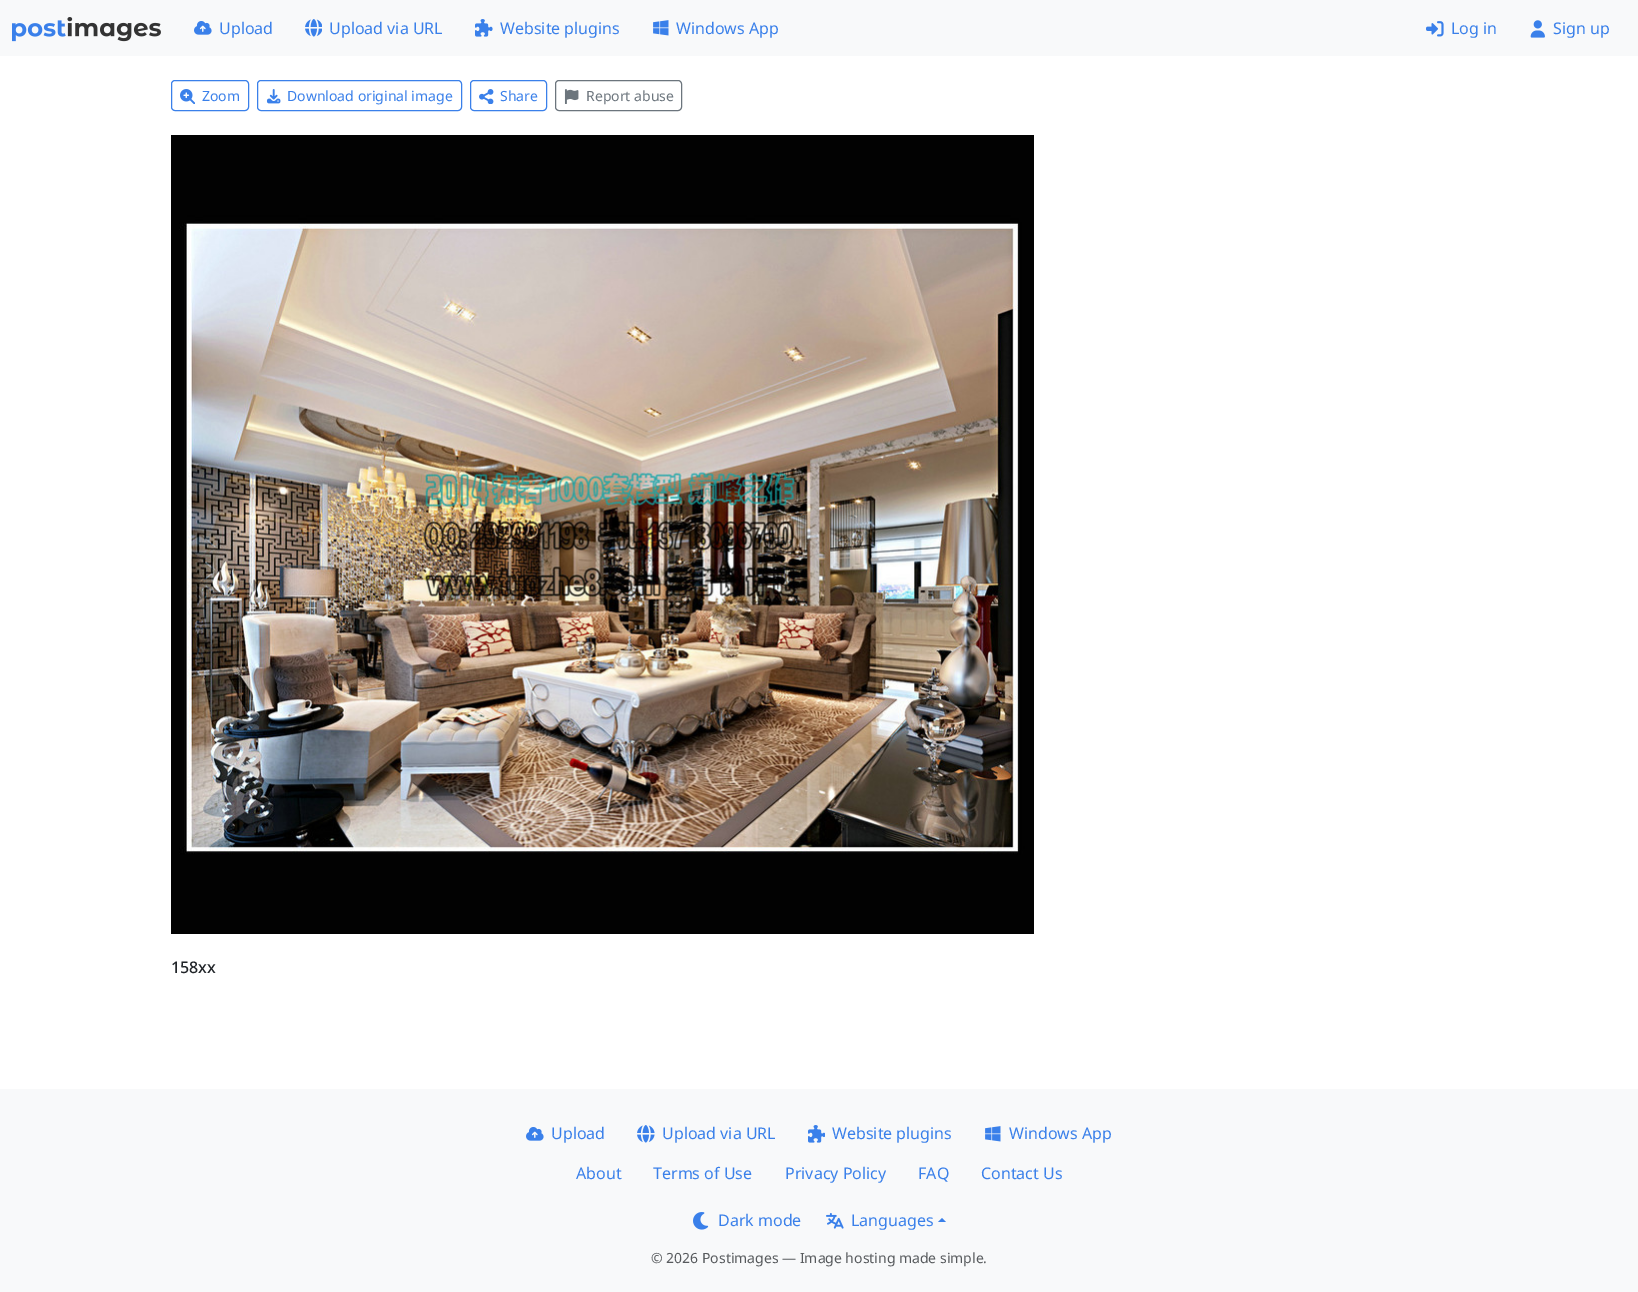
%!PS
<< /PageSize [1638 1292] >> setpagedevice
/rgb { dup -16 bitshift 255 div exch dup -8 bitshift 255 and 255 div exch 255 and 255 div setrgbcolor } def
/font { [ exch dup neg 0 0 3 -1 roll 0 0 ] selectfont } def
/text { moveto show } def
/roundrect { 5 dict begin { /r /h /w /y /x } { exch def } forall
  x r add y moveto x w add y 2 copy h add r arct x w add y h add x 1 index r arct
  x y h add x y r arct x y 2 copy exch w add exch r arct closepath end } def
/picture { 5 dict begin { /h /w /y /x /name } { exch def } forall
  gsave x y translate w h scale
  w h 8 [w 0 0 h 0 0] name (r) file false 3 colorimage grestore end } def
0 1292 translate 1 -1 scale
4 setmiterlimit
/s1 { /NotoSans-Regular 16 font 16#3A80EA rgb } def
/s2 { /NotoSans-Regular 14 font 16#3A80EA rgb } def
/s3 { /NotoSans-Regular 14 font 16#6C757D rgb } def
/s4 { /NotoSans-Medium 16 font 16#212529 rgb } def
/s5 { /NotoSans-Regular 14 font 16#575A5D rgb } def
16#FFFFFF rgb
0 0 1638 1292 rectfill
16#F8F9FA rgb
0 0 1638 56 rectfill
(pic1.raw) 12 17 149 25 picture
(pic2.raw) 194 21 18 14 picture
s1
(Upload) 219 34 text
(pic3.raw) 305 19 17 18 picture
(Upload via URL) 329 34 text
(pic4.raw) 475 19 18 18 picture
(Website plugins) 500 34 text
(pic5.raw) 653 20 16 16 picture
(Windows App) 676 34 text
(pic6.raw) 1426 21 18 16 picture
(Log in) 1451 34 text
(pic7.raw) 1530 20 15 18 picture
(Sign up) 1553 34 text
171.5 80.5 77 30 3.5 roundrect stroke
(pic8.raw) 180 89 15 15 picture
s2
(Zoom) 202 101 text
257.5 80.5 204 30 3.5 roundrect stroke
(pic9.raw) 266 89 15 15 picture
(Download original image) 287 101 text
470.5 80.5 76 30 3.5 roundrect stroke
(pic10.raw) 479 89 15 15 picture
(Share) 500 101 text
16#6C757D rgb
555.5 80.5 126 30 3.5 roundrect stroke
(pic11.raw) 564 89 15 15 picture
(Report abuse) 586 101 text
(pic12.raw) 171 135 863 799 picture
s4
(158xx) 171 973 text
16#F8F9FA rgb
0 1089 1638 203 rectfill
(pic2.raw) 526 1127 18 14 picture
s1
(Upload) 551 1139 text
(pic13.raw) 637 1125 18 18 picture
(Upload via URL) 662 1139 text
(pic14.raw) 808 1125 17 18 picture
(Website plugins) 832 1139 text
(pic5.raw) 985 1126 16 16 picture
(Windows App) 1009 1139 text
(About) 576 1179 text
(Terms of Use) 653 1179 text
(Privacy Policy) 785 1179 text
(FAQ) 918 1179 text
(Contact Us) 981 1179 text
(pic15.raw) 693 1212 16 18 picture
(Dark mode) 718 1226 text
(pic16.raw) 826 1213 18 16 picture
(Languages) 851 1226 text
946 1222 moveto 938 1222 lineto 942 1218 lineto closepath fill
s5
(© 2026 Postimages — Image hosting made simple.) 651 1263 text
showpage
